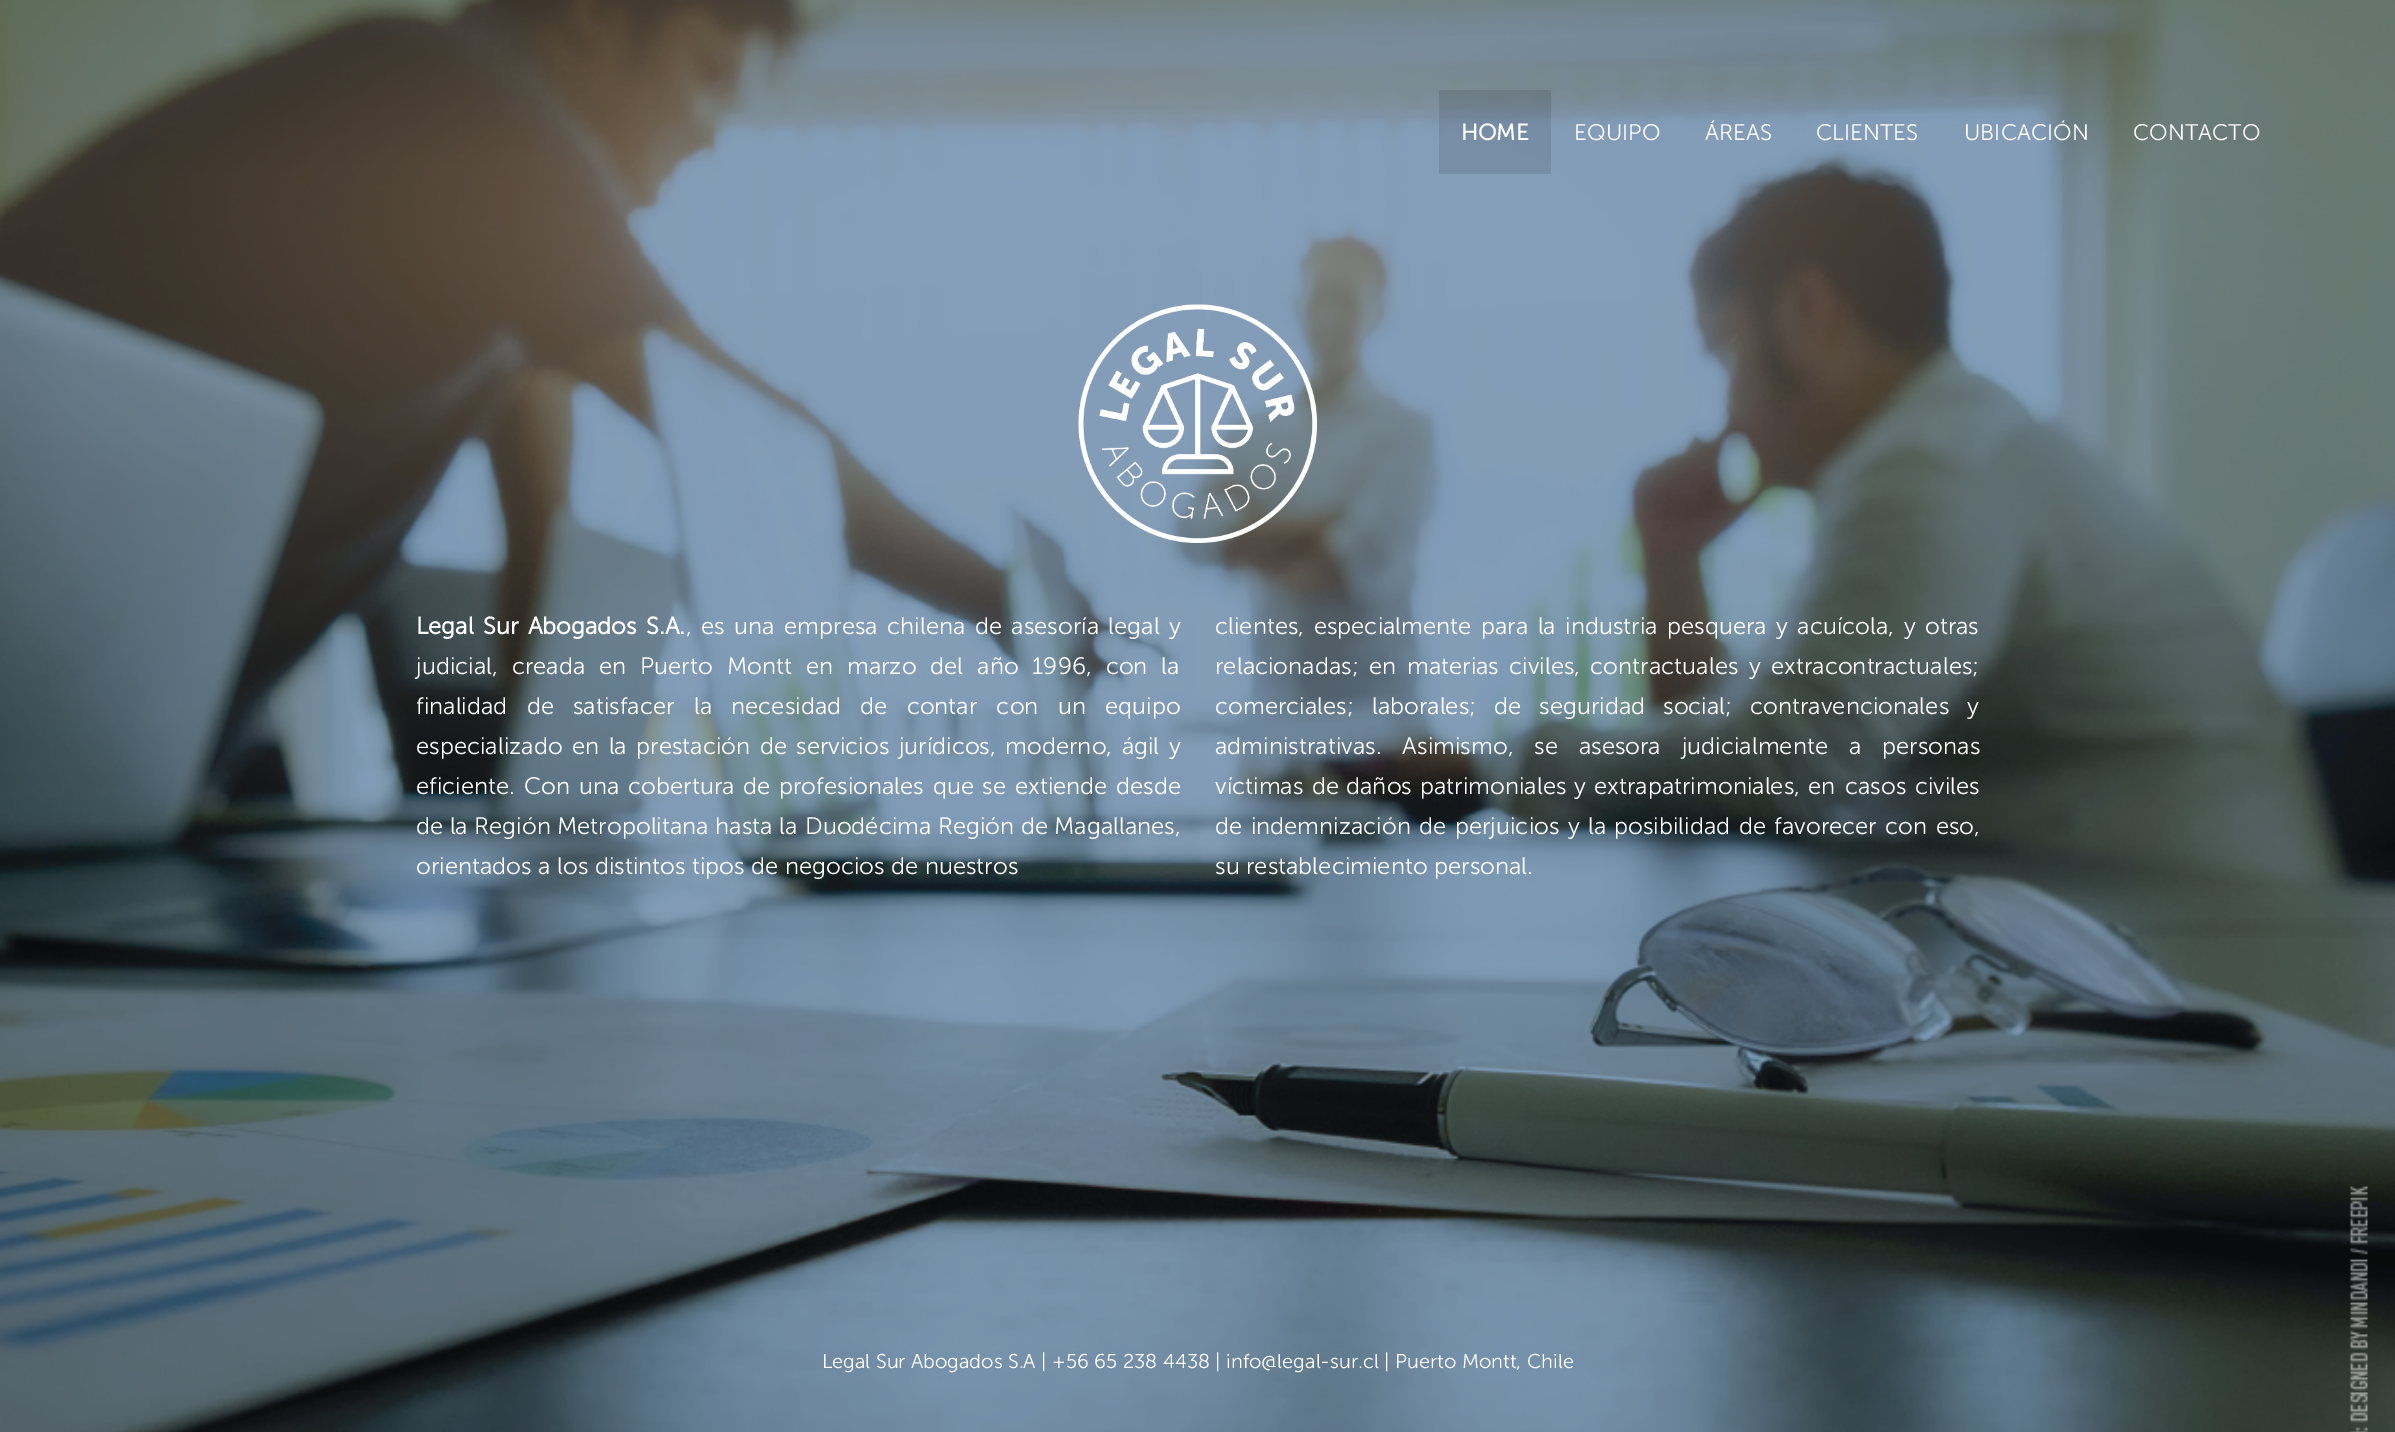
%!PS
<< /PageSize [2395 1432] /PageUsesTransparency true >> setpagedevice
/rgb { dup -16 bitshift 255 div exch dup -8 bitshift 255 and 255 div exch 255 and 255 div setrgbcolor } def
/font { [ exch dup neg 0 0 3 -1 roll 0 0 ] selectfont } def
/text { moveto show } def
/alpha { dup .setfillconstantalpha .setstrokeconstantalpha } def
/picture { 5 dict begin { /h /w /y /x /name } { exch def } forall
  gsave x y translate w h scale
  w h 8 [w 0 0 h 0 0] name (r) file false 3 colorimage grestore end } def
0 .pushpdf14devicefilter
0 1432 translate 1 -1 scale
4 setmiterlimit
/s1 { /MuseoSans-Bold 22.5 font 16#FFFFFF rgb } def
/s2 { /MuseoSans-Light 22.5 font 16#FFFFFF rgb } def
/s3 { /MuseoSans-Light 23.8 font 16#FFFFFF rgb } def
/s4 { /MuseoSans-Light 20 font 16#FFFFFF rgb } def
16#FFFFFF rgb
0 0 2395 1432 rectfill
(pic1.raw) 0 0 2395 1432 picture
0.1 alpha
16#000000 rgb
1439 90 112 84 rectfill
1 alpha
s1
(HOME) 1461 140 text
s2
(EQUIPO) 1574 140 text
(ÁREAS) 1705 140 text
(CLIENTES) 1816 140 text
(UBICACIÓN) 1964 140 text
(CONTACTO) 2133 140 text
(pic2.raw) 1078 304 239 239 picture
/MuseoSans-Bold 23.8 font
416 634 moveto 3 0 32 (Legal Sur Abogados S.A.) widthshow
/MuseoSans-Light 23.8 font
686 634 moveto 3 0 32 (, es una empresa) widthshow
887 634 moveto 3 0 32 (chilena de asesoría legal y) widthshow
416 674 moveto 7.5 0 32 (judicial, creada en) widthshow
640 674 moveto 7.5 0 32 (Puerto Montt en marzo del año 1996, con la) widthshow
416 714 moveto 12.75 0 32 (finalidad de satisfacer la necesidad de contar con) widthshow
1058 714 moveto 12.75 0 32 (un equipo) widthshow
416 754 moveto 3 0 32 (especializado en la prestación de) widthshow
796 754 moveto 3 0 32 (servicios jurídicos, moderno, ágil y) widthshow
416 794 moveto 2.25 0 32 (eficiente. Con) widthshow
579 794 moveto 2.25 0 32 (una cobertura de profesionales que se extiende) widthshow
(desde) 1116 794 text
(de la Región Metropolitana hasta la) 416 834 text
(Duodécima Región de Magallanes,) 805 834 text
(orientados a los distintos tipos de negocios de nuestros) 416 874 text
1215 634 moveto 3 0 32 (clientes, especialmente para la industria pesquera) widthshow
1776 634 moveto 3 0 32 (y acuícola, y otras) widthshow
1215 674 moveto 4 0 32 (relacionadas; en materias) widthshow
1509 674 moveto 4 0 32 (civiles, contractuales y extracontractuales;) widthshow
1215 714 moveto 11.5 0 32 (comerciales; laborales; de seguridad social;) widthshow
1750 714 moveto 11.5 0 32 (contravencionales y) widthshow
1215 754 moveto 14.5 0 32 (administrativas. Asimismo,) widthshow
1534 754 moveto 14.5 0 32 (se asesora judicialmente a personas) widthshow
1215 794 moveto 2 0 32 (víctimas de) widthshow
1346 794 moveto 1.5 0 32 (daños patrimoniales y extrapatrimoniales, en) widthshow
1845 794 moveto 2 0 32 (casos civiles) widthshow
1215 834 moveto 2 0 32 (de indemnización de perjuicios y la) widthshow
1614 834 moveto 2 0 32 (posibilidad de favorecer con eso,) widthshow
(su restablecimiento personal.) 1215 874 text
s4
(Legal Sur Abogados S.A | +56 65 238 4438 | info@legal-sur.cl | Puerto Montt, Chile) 822 1368 text
.poppdf14devicefilter showpage
